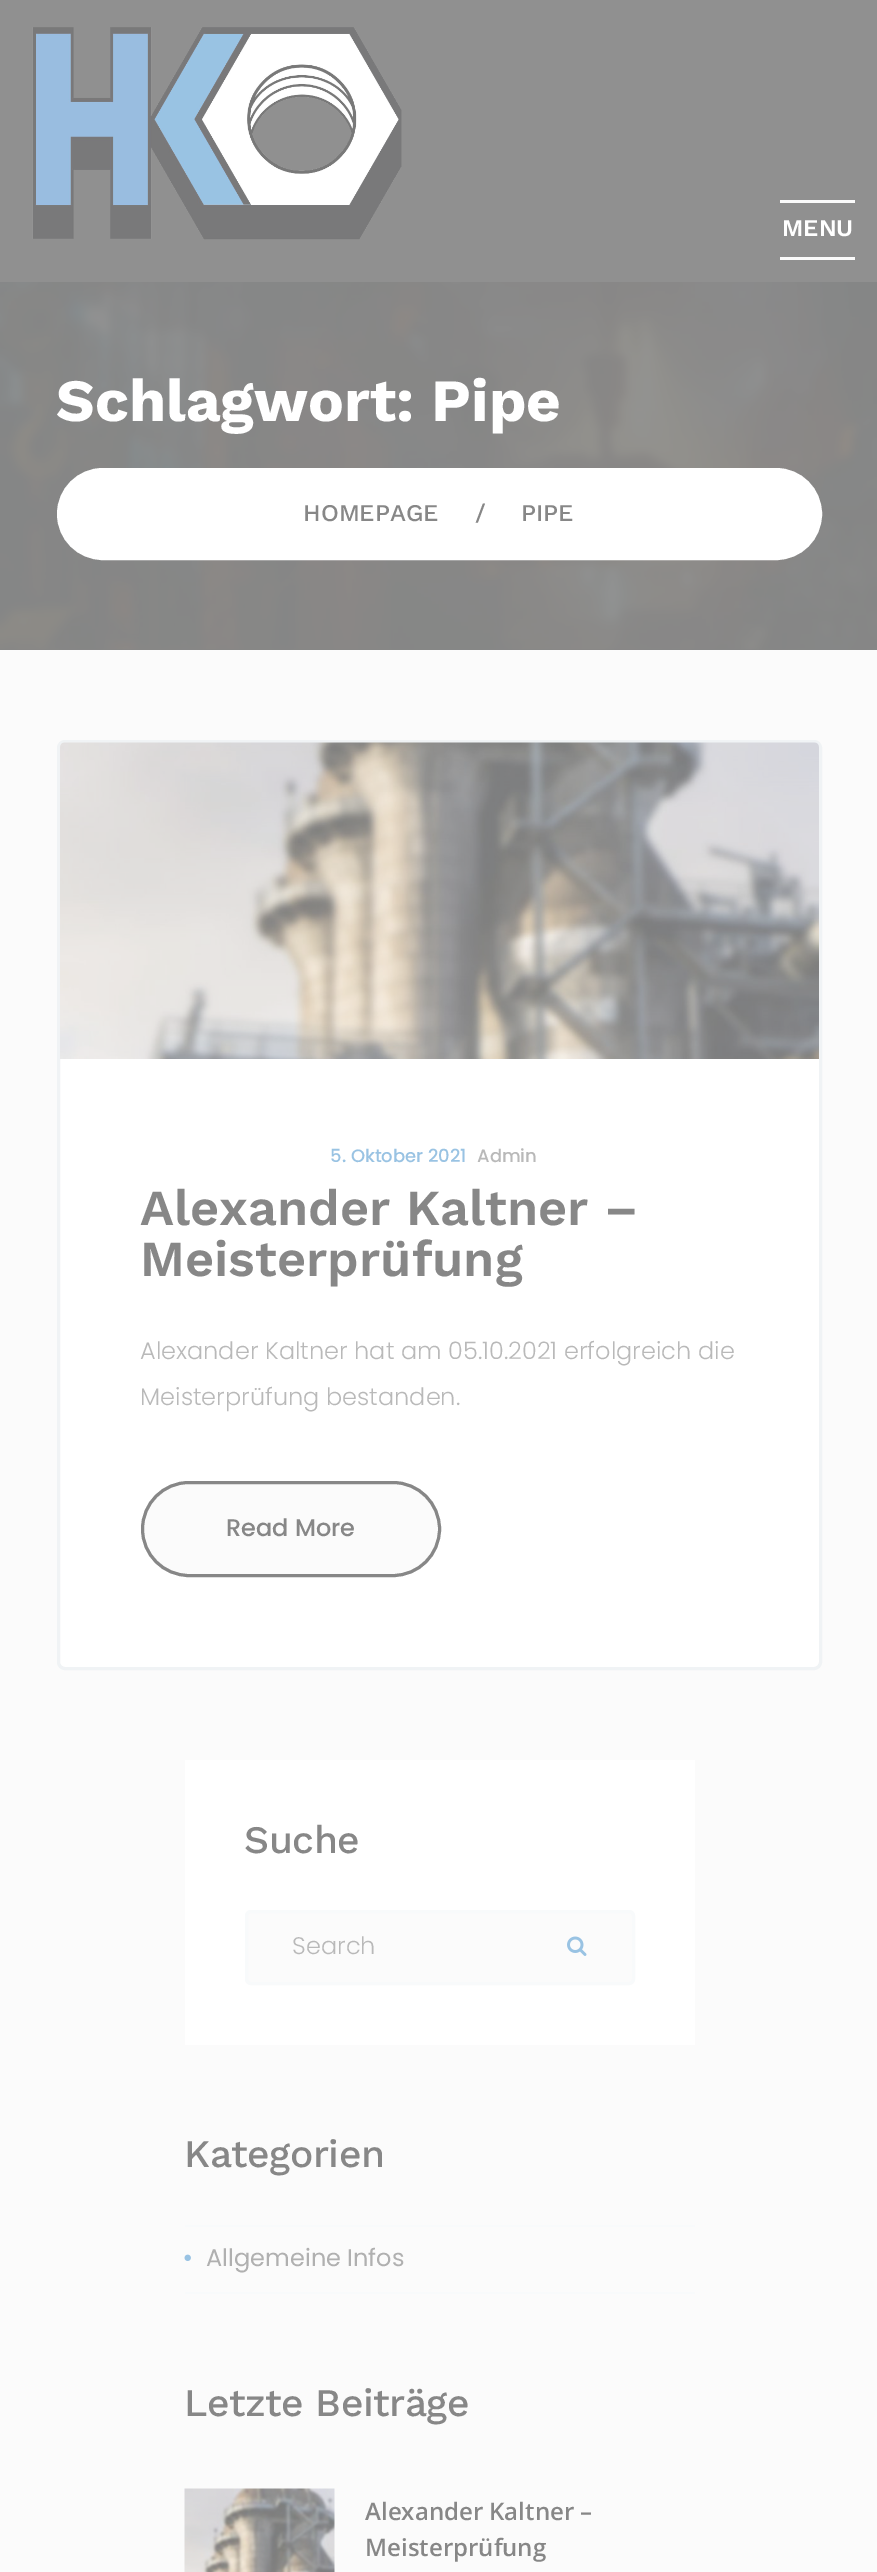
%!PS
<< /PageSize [877 2572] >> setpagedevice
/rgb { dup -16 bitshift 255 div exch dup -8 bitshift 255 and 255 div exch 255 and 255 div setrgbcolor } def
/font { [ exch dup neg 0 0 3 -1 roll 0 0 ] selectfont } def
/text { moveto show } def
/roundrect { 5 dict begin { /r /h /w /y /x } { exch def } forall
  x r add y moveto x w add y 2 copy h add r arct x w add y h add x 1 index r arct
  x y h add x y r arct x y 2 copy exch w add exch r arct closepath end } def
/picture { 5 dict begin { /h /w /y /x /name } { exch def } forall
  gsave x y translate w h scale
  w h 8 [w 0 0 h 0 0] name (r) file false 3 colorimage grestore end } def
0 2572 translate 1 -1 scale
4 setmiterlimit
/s1 { /WorkSans-SemiBold 24 font 16#FFFFFF rgb } def
/s2 { /WorkSans-Bold 60 font 16#FFFFFF rgb } def
/s3 { /WorkSans-Medium 24 font 16#878787 rgb } def
/s4 { /Poppins-Medium 18 font 16#99C3E3 rgb } def
/s5 { /Poppins-Medium 18 font 16#B9B9B9 rgb } def
/s6 { /WorkSans-SemiBold 50.5 font 16#878787 rgb } def
/s7 { /Poppins-Light 24 font 16#B9B9B9 rgb } def
/s8 { /Poppins-Medium 24 font 16#878787 rgb } def
/s9 { /Poppins-Regular 24 font 16#B0B0B0 rgb } def
/s10 { /OpenSans-SemiBold 24 font 16#878787 rgb } def
16#878787 rgb
0 0 877 2572 rectfill
16#909090 rgb
0 0 877 282 rectfill
(pic1.raw) 32 27 370 213 picture
16#FAFAFA rgb
780 200 75 3 rectfill
s1
(MENU) 782 236 text
16#FAFAFA rgb
780 257 75 3 rectfill
(pic2.raw) 0 282 877 368 picture
s2
(Schlagwort: Pipe) 56 421 text
58.5 469.5 762 89 44.5 roundrect gsave fill grestore
3 setlinewidth
stroke
s3
(HOMEPAGE) 303 521 text
(/) 475 521 text
(PIPE) 521 521 text
16#FBFBFB rgb
0 650 877 1922 rectfill
16#FFFFFF rgb
58.5 741.5 762 927 6.5 roundrect gsave fill grestore
16#F0F3F5 rgb
stroke
(pic3.raw) 60 742 759 317 picture
s4
(5. Oktober 2021) 330 1162 text
s5
(Admin) 477 1162 text
s6
(Alexander Kaltner –) 140 1225 text
(Meisterprüfung) 140 1276 text
s7
(Alexander Kaltner hat am 05.10.2021 erfolgreich die) 140 1359 text
(Meisterprüfung bestanden.) 140 1405 text
16#FBFBFB rgb
142.5 1482.5 297 93 46.5 roundrect gsave fill grestore
16#878787 rgb
stroke
s8
(Read More) 226 1536 text
16#FFFFFF rgb
185 1760 510 285 rectfill
/WorkSans-Medium 39 font
16#878787 rgb
244 1853 moveto -0.5 0 (Suche) ashow
16#FBFBFB rgb
246.5 1911.5 387 72 4.5 roundrect gsave fill grestore
16#F8FAFB rgb
stroke
s7
(Search) 292 1954 text
(pic4.raw) 567 1936 20 20 picture
/WorkSans-Medium 39 font
16#878787 rgb
184 2167 moveto -0.5 0 (Kategorien) ashow
16#F8FAFB rgb
185 2225 510 2 rectfill
185 2292 510 2 rectfill
(pic5.raw) 184 2254 7 7 picture
s9
(Allgemeine Infos) 206 2266 text
/WorkSans-Medium 39 font
16#878787 rgb
184 2416 moveto -0.5 0 (Letzte Beiträge) ashow
(pic6.raw) 184 2488 151 84 picture
s10
(Alexander Kaltner –) 365 2520 text
(Meisterprüfung) 365 2556 text
showpage
